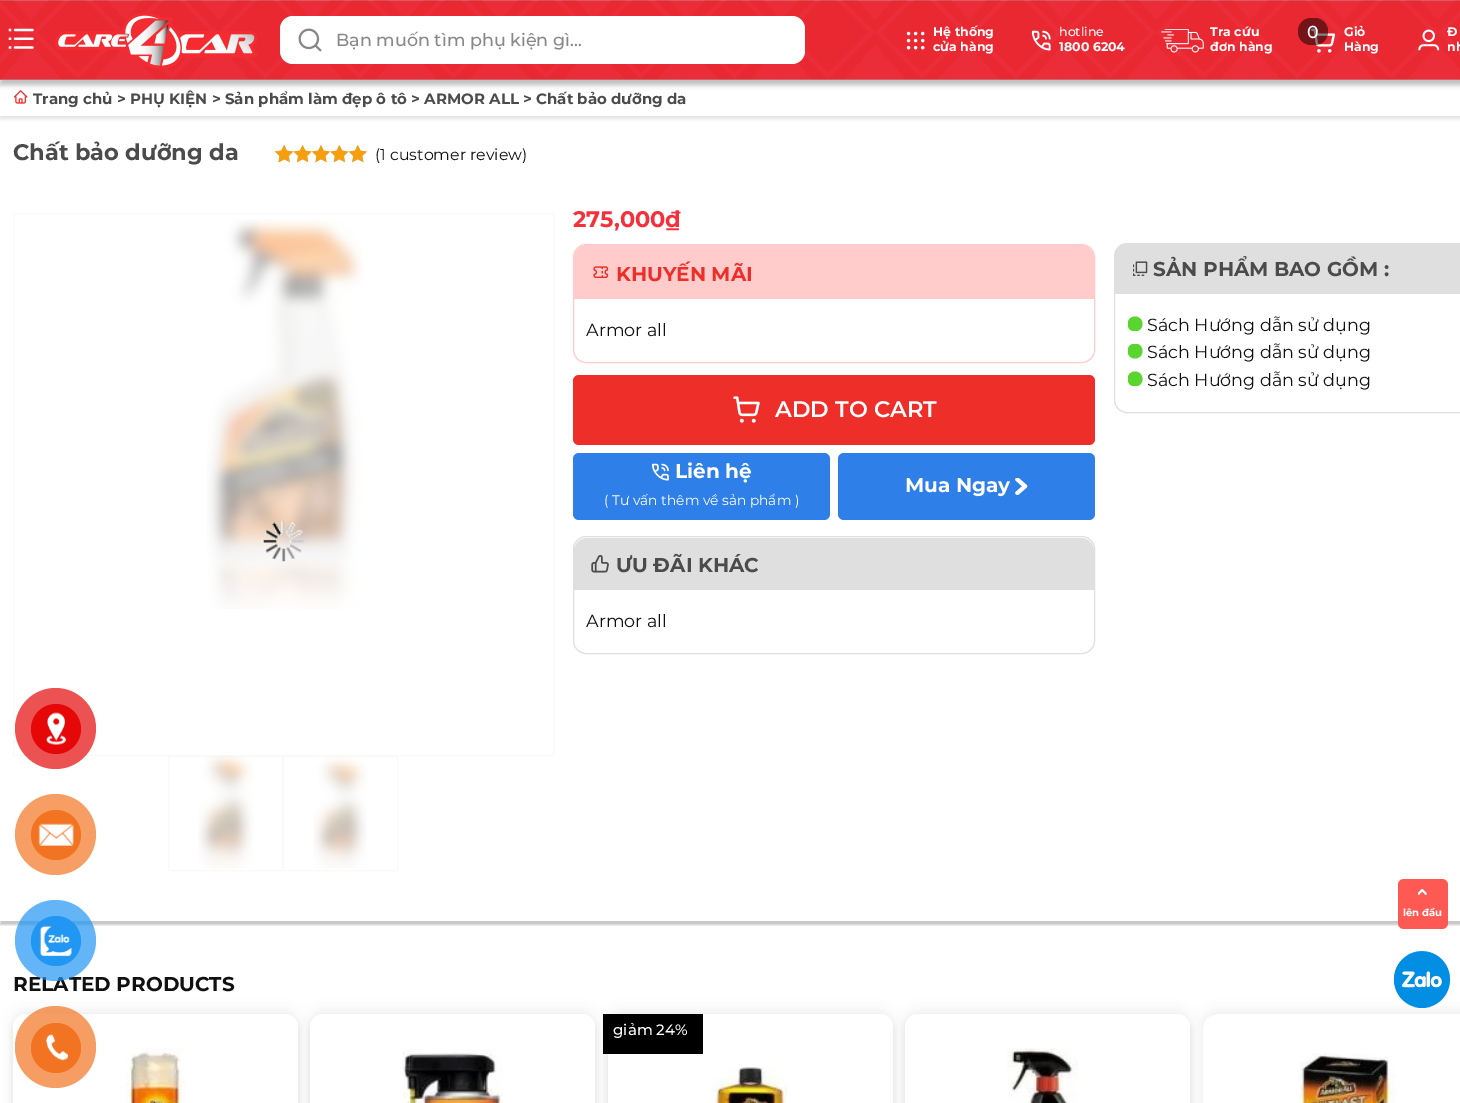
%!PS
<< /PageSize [1460 1103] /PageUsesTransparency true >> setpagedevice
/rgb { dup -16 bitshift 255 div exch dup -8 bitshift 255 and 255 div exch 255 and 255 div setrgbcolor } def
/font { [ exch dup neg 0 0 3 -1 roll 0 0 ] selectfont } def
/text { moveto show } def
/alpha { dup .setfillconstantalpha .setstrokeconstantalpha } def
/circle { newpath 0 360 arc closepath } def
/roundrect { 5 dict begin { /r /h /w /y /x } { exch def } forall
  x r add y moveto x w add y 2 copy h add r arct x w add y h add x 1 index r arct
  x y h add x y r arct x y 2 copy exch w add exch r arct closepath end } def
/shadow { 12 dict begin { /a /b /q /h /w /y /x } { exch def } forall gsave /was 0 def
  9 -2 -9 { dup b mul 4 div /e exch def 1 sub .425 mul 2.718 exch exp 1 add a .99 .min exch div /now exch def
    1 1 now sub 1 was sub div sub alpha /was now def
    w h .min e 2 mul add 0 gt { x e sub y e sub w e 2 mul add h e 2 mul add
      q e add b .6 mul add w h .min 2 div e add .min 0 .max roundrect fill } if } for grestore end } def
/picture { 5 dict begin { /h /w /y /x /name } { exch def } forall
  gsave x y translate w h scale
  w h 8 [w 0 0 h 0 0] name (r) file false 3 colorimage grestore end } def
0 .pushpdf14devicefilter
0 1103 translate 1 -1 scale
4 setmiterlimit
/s1 { /Montserrat-Medium 17.5 font 16#888888 rgb } def
/s2 { /Montserrat-Bold 12.5 font 16#FFFFFF rgb } def
/s3 { /Montserrat-Medium 12.5 font 16#FFFFFF rgb } def
/s4 { /Montserrat-Medium 17.5 font 16#FFFFFF rgb } def
/s5 { /Montserrat-Bold 15 font 16#4B4B4B rgb } def
/s6 { /Montserrat-Bold 22.5 font 16#4B4B4B rgb } def
/s7 { /Montserrat-Regular 15.75 font 16#111111 rgb } def
/s8 { /Montserrat-Bold 22.5 font 16#F4303D rgb } def
/s9 { /Montserrat-Bold 20 font 16#EE2E29 rgb } def
/s10 { /Montserrat-Regular 17.5 font 16#111111 rgb } def
/s11 { /Montserrat-SemiBold 22.5 font 16#FFFFFF rgb } def
/s12 { /Montserrat-Bold 20 font 16#FFFFFF rgb } def
/s13 { /Montserrat-Regular 13.75 font 16#FFFFFF rgb } def
/s14 { /Montserrat-Bold 20 font 16#4B4B4B rgb } def
/s15 { /Montserrat-Bold 20 font 16#111111 rgb } def
/s16 { /Montserrat-Medium 15 font 16#FFFFFF rgb } def
/s17 { /Montserrat-Bold 10 font 16#FFFFFF rgb } def
16#FFFFFF rgb
0 0 1460 1103 rectfill
gsave
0 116 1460 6 rectclip
16#888888 rgb
0 83 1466 36 0 2 0.25 shadow
grestore
(pic10.raw) 13 90 15 14 picture
16#000000 rgb
0 5 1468 80 0 2.5 0.25 shadow
(pic1.raw) 0 0 1460 80 picture
(pic2.raw) 8 28 26 21 picture
(pic3.raw) 55 13 203 56 picture
16#FFFFFF rgb
280 16 525 48 13 roundrect fill
(pic4.raw) 298 28 24 24 picture
s1
(Bạn muốn tìm phụ kiện gì...) 336 46 text
(pic5.raw) 906 31 19 19 picture
s2
(Hệ thống) 933 36 text
(cửa hàng) 933 51 text
(pic6.raw) 1031 30 20 21 picture
s3
(hotline) 1059 36 text
s2
(1800 6204) 1059 51 text
(pic7.raw) 1161 29 43 24 picture
(Tra cứu) 1210 36 text
(đơn hàng) 1210 51 text
(pic8.raw) 1311 28 25 25 picture
0.5 alpha
16#000000 rgb
1298 18 30 27 13 roundrect fill
1 alpha
s4
(0) 1307 38 text
s2
(Giỏ) 1344 36 text
(Hàng) 1344 51 text
(pic9.raw) 1418 29 22 22 picture
(Đ) 1447 36 text
(nh) 1447 51 text
s5
(Trang chủ > PHỤ KIỆN > Sản phẩm làm đẹp ô tô > ARMOR ALL > Chất bảo dưỡng da) 33 104 text
s6
(Chất bảo dưỡng da) 13 160 text
(pic11.raw) 275 145 92 18 picture
(pic12.raw) 275 145 92 18 picture
(pic13.raw) 275 145 9 18 picture
s7
(\(1 customer review\)) 375 160 text
gsave
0 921 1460 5 rectclip
16#262626 rgb
0 204 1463 721 0 1 0.25 shadow
grestore
16#F9F9F9 rgb
13.5 213.5 540 542 rectstroke
(pic14.raw) 207 219 156 390 picture
168.5 756.5 114 114 rectstroke
(pic15.raw) 198 756 56 113 picture
283.5 756.5 114 114 rectstroke
(pic16.raw) 313 756 54 113 picture
(pic17.raw) 263 521 41 41 picture
s8
(275,000₫) 573 227 text
16#FFCCCB rgb
573.5 244.5 521 118 12.5 roundrect stroke
gsave
574 245 520 116 11 roundrect clip newpath
587 245 moveto 1081 245 lineto 1088 245 1094 251 1094 258 curveto 1094 299 lineto 574 299 lineto 574 258 lineto 574 251 580 245 587 245 curveto closepath fill
grestore
(pic18.raw) 593 266 16 12 picture
s9
(KHUYẾN MÃI) 616 281 text
s10
(Armor all) 586 336 text
16#EE2E29 rgb
573 375 522 70 6 roundrect fill
(pic19.raw) 733 396 27 27 picture
s11
(ADD TO CART) 775 417 text
16#2E7FE7 rgb
573 453 257 67 6 roundrect fill
(pic20.raw) 652 463 17 18 picture
s12
(Liên hệ) 675 478 text
s13
(\( Tư vấn thêm về sản phẩm \)) 604 505 text
16#2E7FE7 rgb
838 453 257 67 6 roundrect fill
s12
(Mua Ngay) 905 492 text
(pic21.raw) 1015 478 13 17 picture
16#DFDFDF rgb
573.5 536.5 521 117 12.5 roundrect stroke
gsave
574 538 520 115 11 roundrect clip newpath
587 538 moveto 1081 538 lineto 1088 538 1094 544 1094 551 curveto 1094 590 lineto 574 590 lineto 574 551 lineto 574 544 580 538 587 538 curveto closepath fill
grestore
(pic22.raw) 591 555 18 18 picture
s14
(ƯU ĐÃI KHÁC) 616 572 text
s10
(Armor all) 586 627 text
16#DFDFDF rgb
1114.5 243.5 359 169 12.5 roundrect stroke
1126 244 moveto 1460 244 lineto 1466 244 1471 249 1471 255 curveto 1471 294 lineto 1115 294 lineto 1115 255 lineto 1115 249 1120 244 1126 244 curveto closepath fill
(pic23.raw) 1133 261 15 15 picture
s14
(SẢN PHẨM BAO GỒM :) 1153 276 text
gsave
1128 316 15 15 rectclip
16#5AD52F rgb
1135 324 7.5 circle fill
grestore
s10
(Sách Hướng dẫn sử dụng) 1147 331 text
gsave
1128 344 15 15 rectclip
16#5AD52F rgb
1135 351 7.5 circle fill
grestore
(Sách Hướng dẫn sử dụng) 1147 358 text
gsave
1128 371 15 15 rectclip
16#5AD52F rgb
1135 379 7.5 circle fill
grestore
(Sách Hướng dẫn sử dụng) 1147 386 text
s15
(RELATED PRODUCTS) 13 991 text
16#A8A8A8 rgb
13 1011 285 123 13 6 0.2 shadow
13 1019 285 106 13 3 0.25 shadow
16#FFFFFF rgb
13 1014 285 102 13 roundrect fill
(pic24.raw) 125 1048 60 55 picture
16#A8A8A8 rgb
310 1011 285 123 13 6 0.2 shadow
310 1019 285 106 13 3 0.25 shadow
16#FFFFFF rgb
310 1014 285 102 13 roundrect fill
(pic25.raw) 402 1049 101 54 picture
16#A8A8A8 rgb
608 1011 285 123 13 6 0.2 shadow
608 1019 285 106 13 3 0.25 shadow
16#FFFFFF rgb
608 1014 285 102 13 roundrect fill
(pic26.raw) 710 1067 81 36 picture
16#000000 rgb
603 1014 100 40 rectfill
s16
(giảm 24%) 613 1035 text
16#A8A8A8 rgb
905 1011 285 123 13 6 0.2 shadow
905 1019 285 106 13 3 0.25 shadow
16#FFFFFF rgb
905 1014 285 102 13 roundrect fill
(pic27.raw) 1007 1047 71 56 picture
gsave
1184 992 moveto 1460 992 lineto 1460 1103 lineto 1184 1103 lineto closepath 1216 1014 moveto 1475 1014 lineto 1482 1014 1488 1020 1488 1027 curveto 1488 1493 lineto 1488 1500 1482 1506 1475 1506 curveto 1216 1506 lineto 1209 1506 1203 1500 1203 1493 curveto 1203 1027 lineto 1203 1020 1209 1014 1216 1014 curveto closepath eoclip newpath
16#A8A8A8 rgb
1203 1011 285 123 13 6 0.2 shadow
grestore
(pic28.raw) 1298 1053 97 50 picture
0.7 alpha
16#E60808 rgb
55.5 728.5 40.5 circle fill
1 alpha
56 729 25 circle fill
(pic29.raw) 46 712 21 33 picture
16#F69E64 rgb
55.5 834.5 40.5 circle fill
16#F27422 rgb
56 835 25 circle fill
(pic30.raw) 38 823 36 23 picture
0.7 alpha
16#2196F3 rgb
55.5 940.5 40.5 circle fill
1 alpha
56 941 25 circle fill
(pic31.raw) 39 926 33 31 picture
0.7 alpha
16#F27422 rgb
15 1006 81 82 40.5 roundrect fill
1 alpha
56 1048 25 circle fill
(pic32.raw) 46 1034 22 27 picture
16#FF5954 rgb
1398 879 50 50 6 roundrect fill
(pic33.raw) 1418 889 9 6 picture
s17
(lên đầu) 1403 916 text
16#028FE3 rgb
1394 951 56 57 28 roundrect fill
(pic34.raw) 1393 951 57 56 picture
.poppdf14devicefilter showpage
